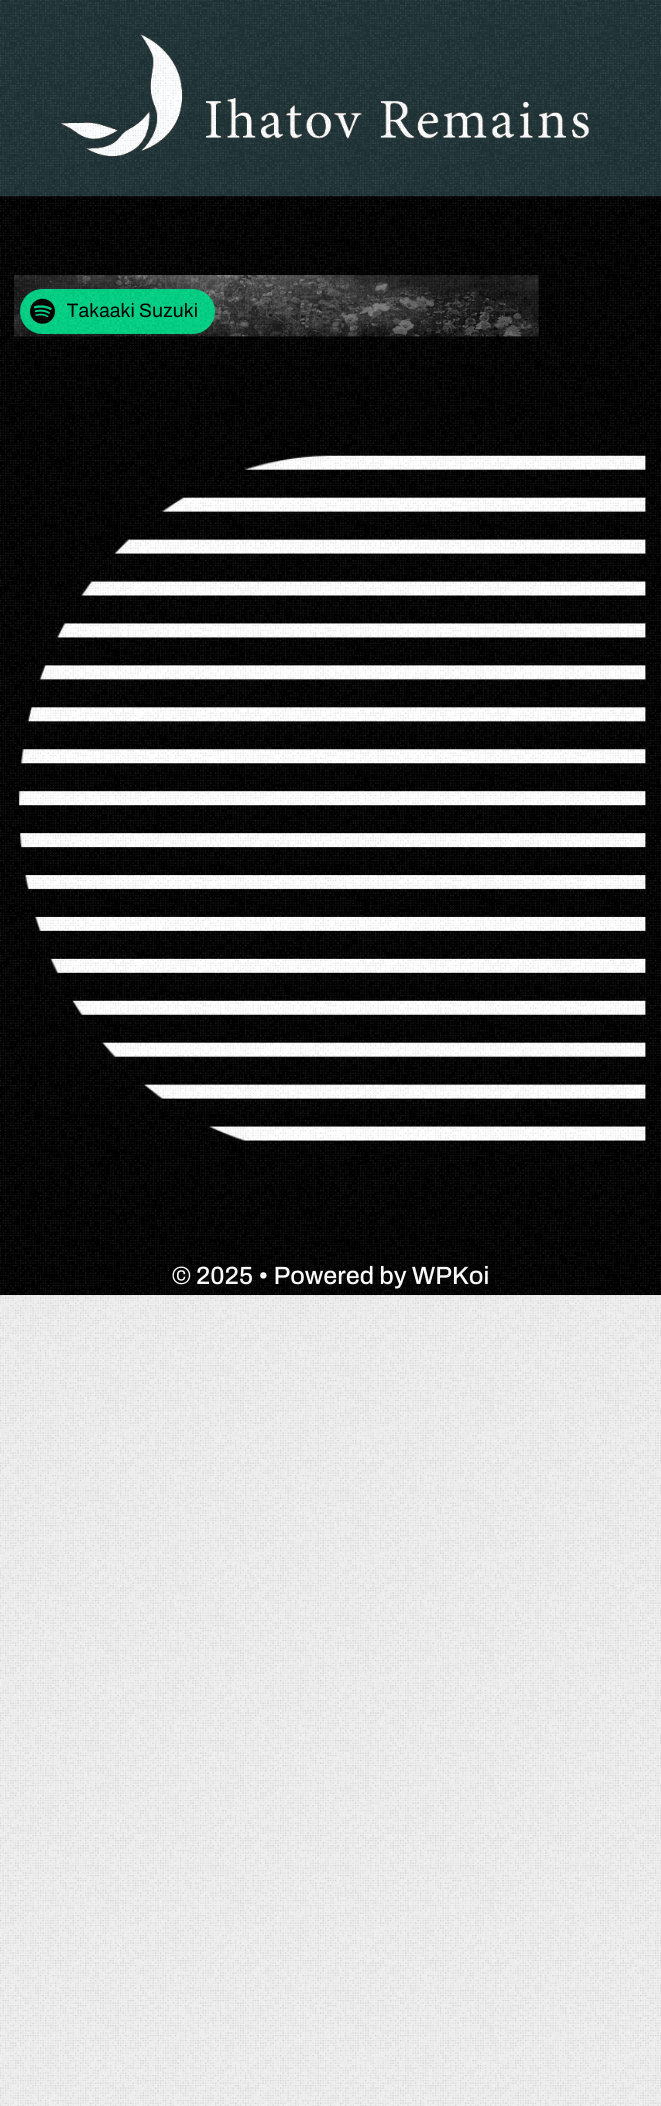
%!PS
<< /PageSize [661 2106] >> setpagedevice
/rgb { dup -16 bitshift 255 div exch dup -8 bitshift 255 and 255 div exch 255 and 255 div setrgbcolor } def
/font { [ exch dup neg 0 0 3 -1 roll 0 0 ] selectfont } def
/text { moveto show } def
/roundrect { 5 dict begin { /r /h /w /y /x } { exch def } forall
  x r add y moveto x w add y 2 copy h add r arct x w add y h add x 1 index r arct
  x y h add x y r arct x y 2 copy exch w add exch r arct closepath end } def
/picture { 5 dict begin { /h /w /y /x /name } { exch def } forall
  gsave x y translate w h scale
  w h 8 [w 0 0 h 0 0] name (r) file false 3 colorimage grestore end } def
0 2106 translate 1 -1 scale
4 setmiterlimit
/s1 { /Archivo-Regular 19.5 font 16#000000 rgb } def
/s2 { /Archivo-Medium 25 font 16#FFFFFF rgb } def
16#EEEEEE rgb
0 0 661 2106 rectfill
16#000000 rgb
0 196 661 1099 rectfill
(pic1.raw) 0 0 661 197 picture
(pic3.raw) 14 275 525 62 picture
16#00D084 rgb
20 289 195 45 22.5 roundrect fill
(pic4.raw) 30 298 25 26 picture
s1
(Takaaki Suzuki) 67 317 text
(pic5.raw) 14 454 634 687 picture
s2
(© 2025 • Powered by WPKoi) 172 1284 text
(pic2.raw) 0 0 661 2106 picture
showpage
